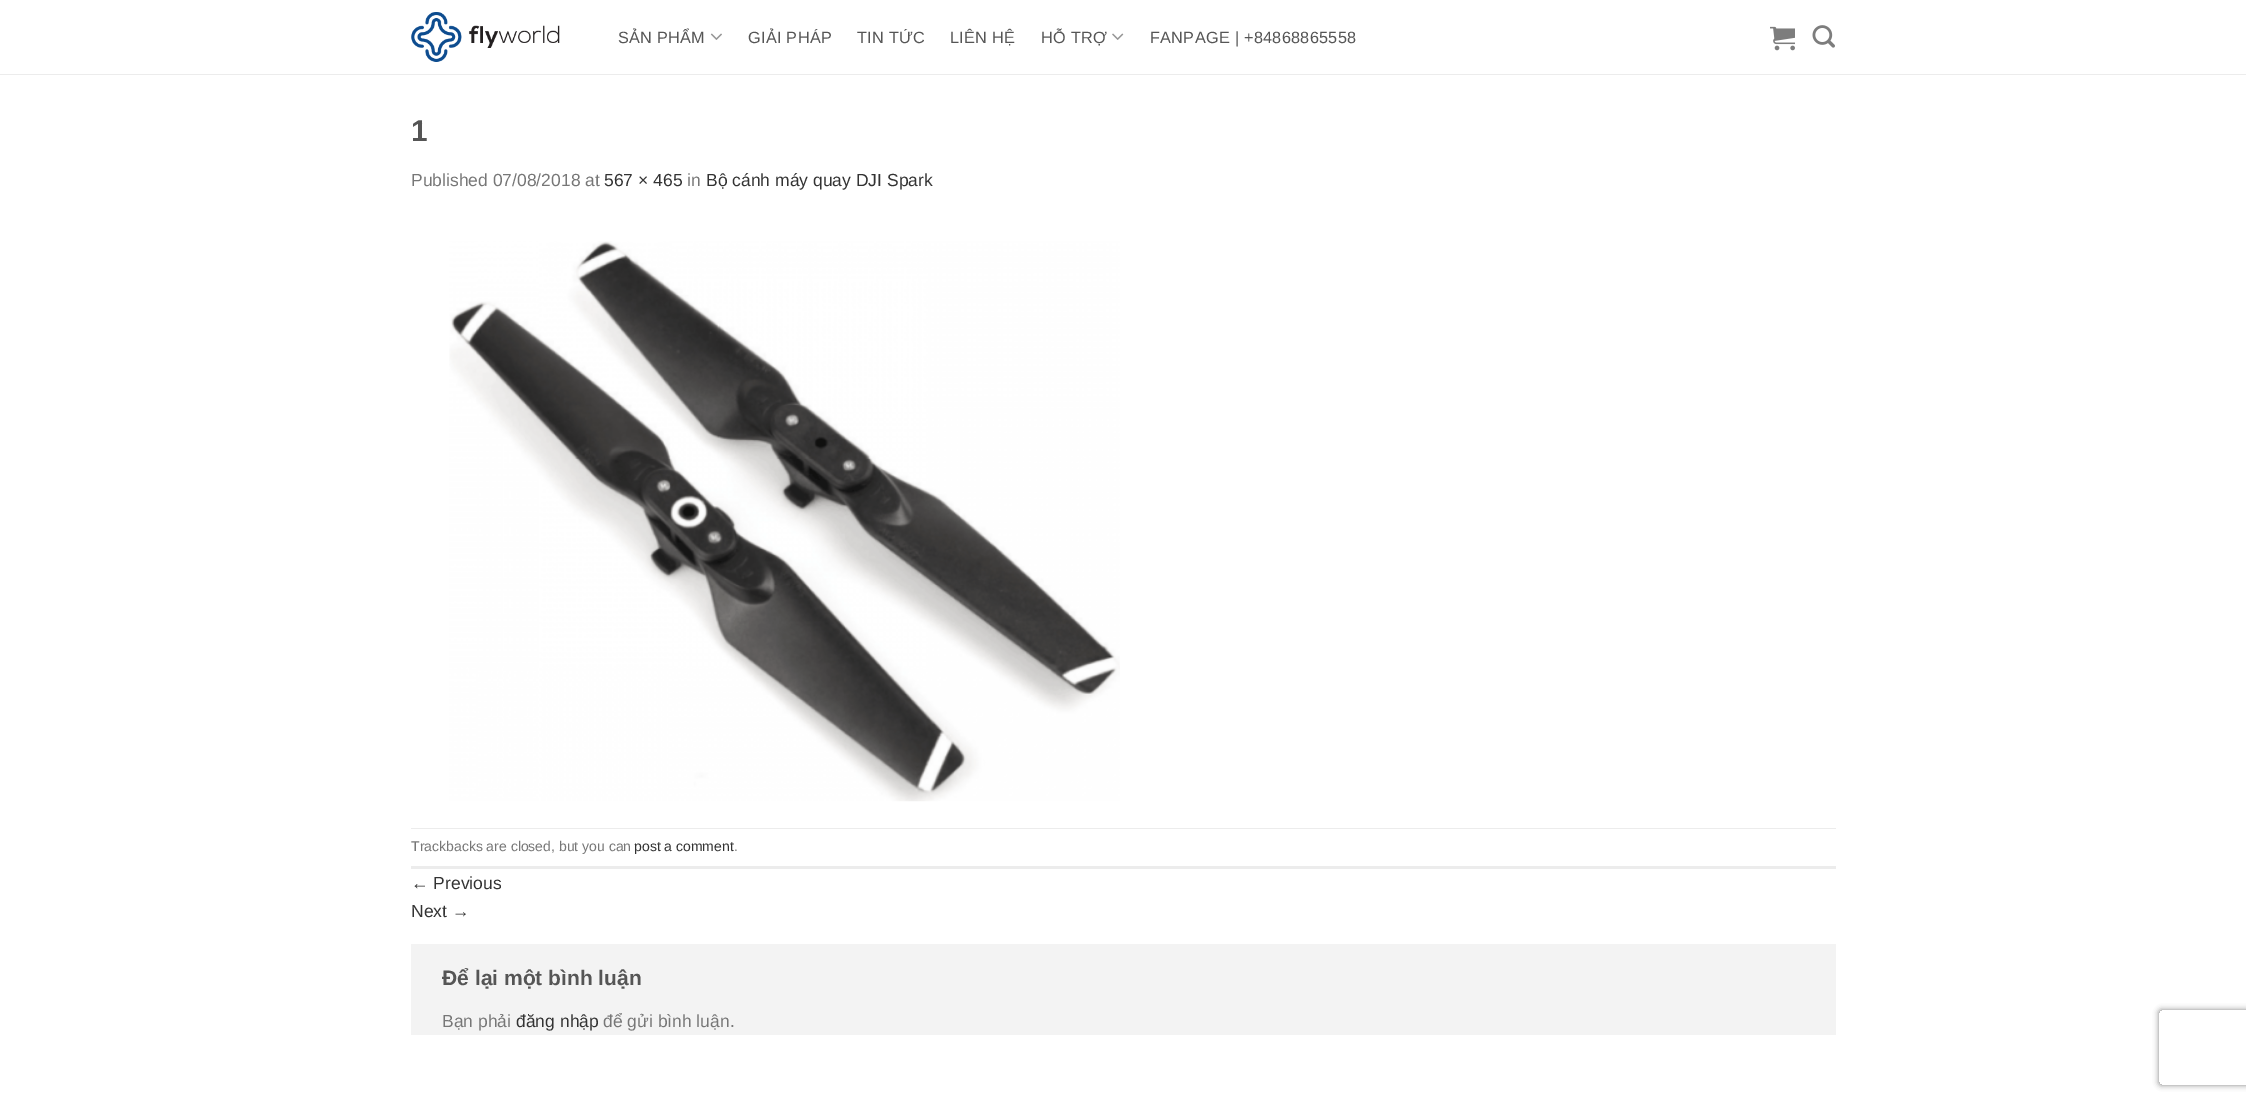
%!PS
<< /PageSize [2246 1102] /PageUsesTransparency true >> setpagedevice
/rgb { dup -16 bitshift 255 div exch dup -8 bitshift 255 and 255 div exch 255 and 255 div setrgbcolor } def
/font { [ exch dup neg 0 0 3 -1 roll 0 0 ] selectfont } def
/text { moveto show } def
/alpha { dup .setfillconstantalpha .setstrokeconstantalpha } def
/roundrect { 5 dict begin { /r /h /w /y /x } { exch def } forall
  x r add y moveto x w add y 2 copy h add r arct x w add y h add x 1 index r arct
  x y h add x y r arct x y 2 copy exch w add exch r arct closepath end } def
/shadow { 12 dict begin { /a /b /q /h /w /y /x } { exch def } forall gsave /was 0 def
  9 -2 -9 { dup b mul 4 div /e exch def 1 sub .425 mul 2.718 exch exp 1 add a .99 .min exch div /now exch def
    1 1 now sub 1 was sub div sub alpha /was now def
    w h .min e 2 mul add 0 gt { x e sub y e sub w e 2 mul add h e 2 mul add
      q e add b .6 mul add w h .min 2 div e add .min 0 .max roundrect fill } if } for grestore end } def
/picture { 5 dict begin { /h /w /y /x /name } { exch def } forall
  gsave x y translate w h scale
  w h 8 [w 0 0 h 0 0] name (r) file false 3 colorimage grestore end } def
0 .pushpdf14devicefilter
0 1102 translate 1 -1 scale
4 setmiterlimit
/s1 { /LiberationSans-Bold 30 font 16#555555 rgb } def
/s2 { /LiberationSans-Regular 17.5 font 16#777777 rgb } def
/s3 { /LiberationSans-Regular 17.5 font 16#333333 rgb } def
/s4 { /LiberationSans-Regular 14 font 16#777777 rgb } def
/s5 { /LiberationSans-Regular 14 font 16#333333 rgb } def
/s6 { /LiberationSans-Bold 21 font 16#555555 rgb } def
16#FFFFFF rgb
0 0 2246 1102 rectfill
16#ECECEC rgb
0 74 2246 1 rectfill
(pic1.raw) 411 12 149 50 picture
/LiberationSans-Regular 16.25 font
16#555555 rgb
618 43 moveto 0.3 0 (SẢN PHẨM) ashow
(pic2.raw) 710 33 12 7 picture
748 43 moveto 0.3 0 (GIẢI PHÁP) ashow
857 43 moveto 0.3 0 (TIN TỨC) ashow
950 43 moveto 0.3 0 (LIÊN HỆ) ashow
1041 43 moveto 0.3 0 (HỖ TRỢ) ashow
(pic3.raw) 1112 33 12 7 picture
1150 43 moveto 0.3 0 (FANPAGE | +84868865558) ashow
(pic4.raw) 1770 26 25 25 picture
(pic5.raw) 1812 25 23 23 picture
s1
(1) 411 141 text
s2
(Published 07/08/2018 at) 411 186 text
s3
(567 × 465) 604 186 text
s2
(in) 687 186 text
s3
(Bộ cánh máy quay DJI Spark) 706 186 text
(pic6.raw) 449 241 671 561 picture
16#ECECEC rgb
411 828 1425 1 rectfill
411 866 1425 3 rectfill
s4
(Trackbacks are closed, but you can) 411 851 text
s5
(post a comment) 634 851 text
s4
(.) 734 851 text
s3
(← Previous) 411 889 text
(Next →) 411 917 text
16#F3F3F3 rgb
411 944 1425 91 rectfill
s6
(Để lại một bình luận) 442 985 text
s2
(Bạn phải) 442 1027 text
s3
(đăng nhập) 516 1027 text
s2
(để gửi bình luận.) 603 1027 text
gsave
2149 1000 moveto 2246 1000 lineto 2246 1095 lineto 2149 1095 lineto closepath 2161.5 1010 moveto 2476.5 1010 lineto 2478 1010 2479 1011 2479 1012.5 curveto 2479 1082.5 lineto 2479 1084 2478 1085 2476.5 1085 curveto 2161.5 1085 lineto 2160 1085 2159 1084 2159 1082.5 curveto 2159 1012.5 lineto 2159 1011 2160 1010 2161.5 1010 curveto closepath eoclip newpath
16#808080 rgb
2159 1010 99 75 2.5 3 1 shadow
grestore
.poppdf14devicefilter showpage
